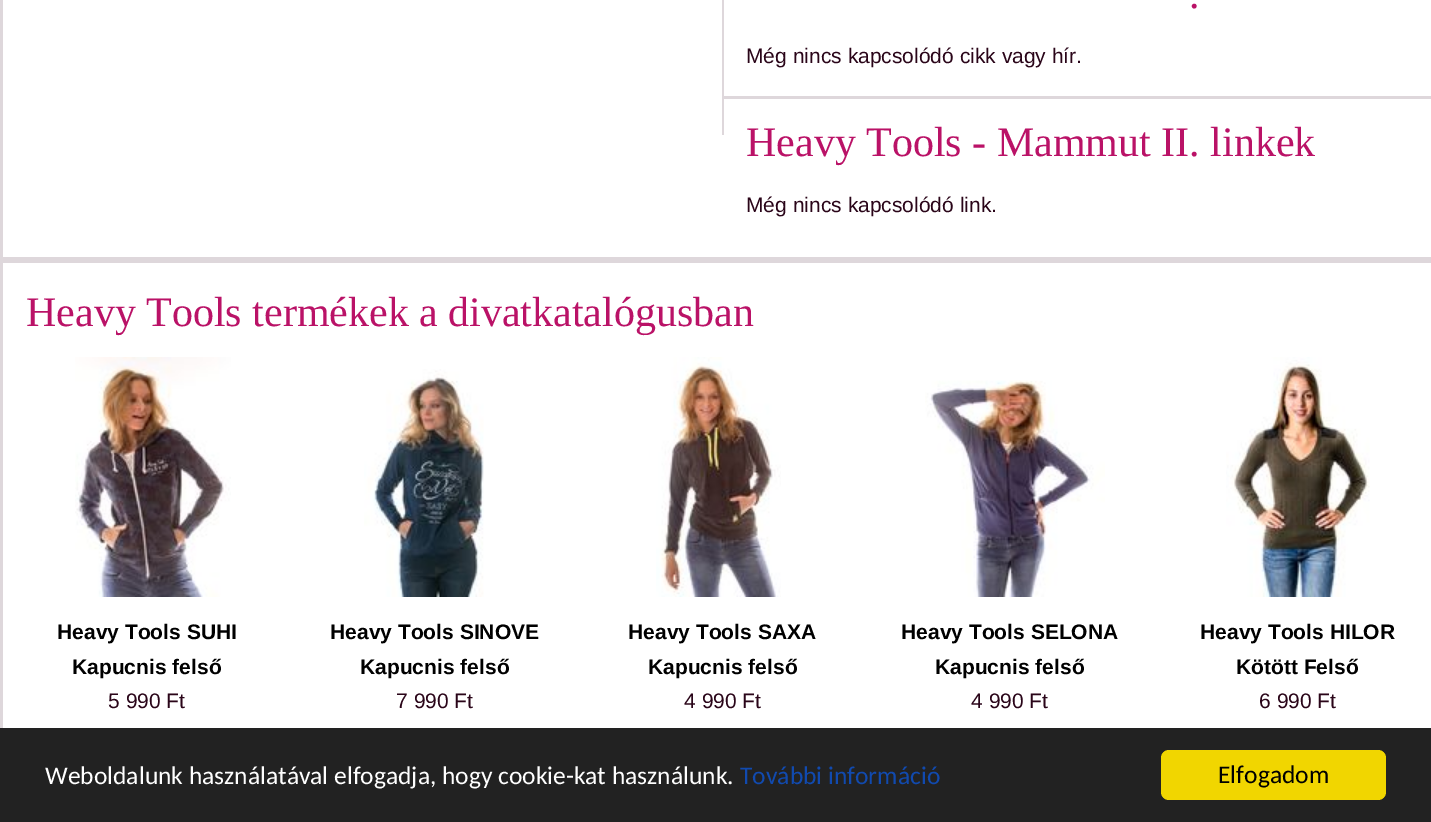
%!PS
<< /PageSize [1431 822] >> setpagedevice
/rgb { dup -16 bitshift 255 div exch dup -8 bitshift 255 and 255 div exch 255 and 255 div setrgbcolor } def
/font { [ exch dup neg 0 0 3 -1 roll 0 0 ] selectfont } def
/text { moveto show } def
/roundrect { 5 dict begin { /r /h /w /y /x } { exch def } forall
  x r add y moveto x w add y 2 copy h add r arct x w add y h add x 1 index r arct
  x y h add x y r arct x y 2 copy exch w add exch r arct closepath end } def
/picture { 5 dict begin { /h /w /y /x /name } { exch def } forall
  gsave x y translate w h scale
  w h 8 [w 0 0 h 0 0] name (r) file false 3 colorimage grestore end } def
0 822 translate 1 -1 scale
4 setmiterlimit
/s1 { /LiberationSerif-Regular 42 font 16#BA1267 rgb } def
/s2 { /LiberationSans-Regular 21 font 16#2A0519 rgb } def
/s3 { /LiberationSans-Bold 21 font 16#000000 rgb } def
/s4 { /Carlito-Regular 25.5 font 16#FFFFFF rgb } def
/s5 { /Carlito-Regular 25.5 font 16#114AAF rgb } def
/s6 { /Carlito-Regular 25.5 font 16#000000 rgb } def
16#FFFFFF rgb
0 0 1431 822 rectfill
16#DED7DB rgb
0 0 3 728 rectfill
722 0 2 135 rectfill
s1
(.) 1189 8 text
s2
(Még nincs kapcsolódó cikk vagy hír.) 746 63 text
16#DED7DB rgb
723 96 708 3 rectfill
s1
(Heavy Tools - Mammut II. linkek) 746 156 text
s2
(Még nincs kapcsolódó link.) 746 212 text
16#DED7DB rgb
3 257 1428 6 rectfill
s1
(Heavy Tools termékek a divatkatalógusban) 26 326 text
(pic1.raw) 75 357 156 240 picture
s3
(Heavy Tools SUHI) 57 639 text
(Kapucnis felső) 72 674 text
s2
(5 990 Ft) 108 708 text
(pic2.raw) 364 369 120 228 picture
s3
(Heavy Tools SINOVE) 330 639 text
(Kapucnis felső) 360 674 text
s2
(7 990 Ft) 396 708 text
(pic3.raw) 656 357 125 240 picture
s3
(Heavy Tools SAXA) 628 639 text
(Kapucnis felső) 648 674 text
s2
(4 990 Ft) 684 708 text
(pic4.raw) 925 380 180 217 picture
s3
(Heavy Tools SELONA) 901 639 text
(Kapucnis felső) 935 674 text
s2
(4 990 Ft) 971 708 text
(pic5.raw) 1226 357 144 240 picture
s3
(Heavy Tools HILOR) 1200 639 text
(Kötött Felső) 1236 674 text
s2
(6 990 Ft) 1259 708 text
16#222222 rgb
0 728 1431 94 rectfill
s4
(Weboldalunk használatával elfogadja, hogy cookie-kat használunk.) 45 784 text
s5
(További információ) 740 784 text
16#F1D600 rgb
1161 750 225 50 8 roundrect fill
s6
(Elfogadom) 1218 783 text
showpage
